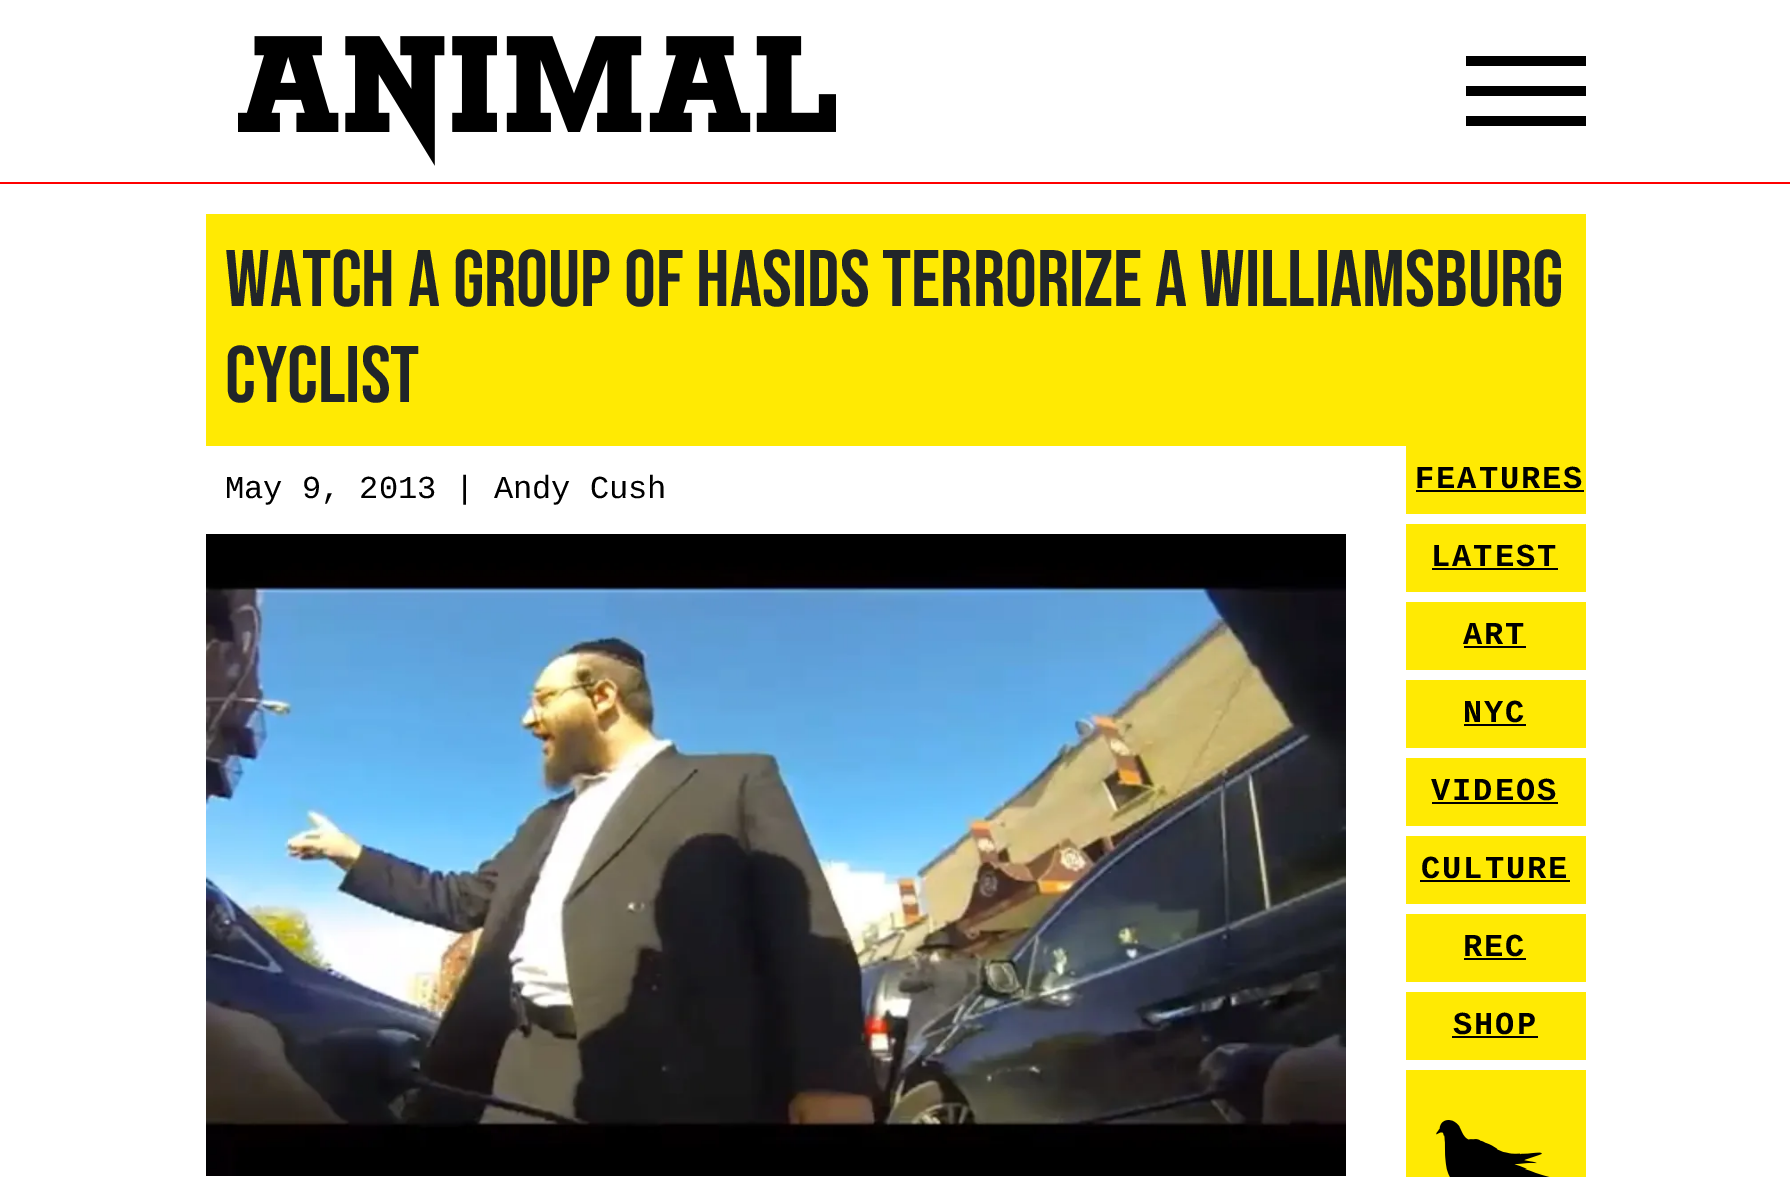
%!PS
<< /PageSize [1790 1177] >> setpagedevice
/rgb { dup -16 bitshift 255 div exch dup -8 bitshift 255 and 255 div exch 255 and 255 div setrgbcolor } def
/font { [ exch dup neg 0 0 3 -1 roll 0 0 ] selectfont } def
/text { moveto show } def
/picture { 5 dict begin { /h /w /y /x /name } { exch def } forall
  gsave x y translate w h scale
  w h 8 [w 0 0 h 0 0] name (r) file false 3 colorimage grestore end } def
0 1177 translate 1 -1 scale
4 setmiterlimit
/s1 { /BebasNeue-Regular 80 font 16#212529 rgb } def
/s2 { /LiberationMono-Regular 32 font 16#000000 rgb } def
16#FFFFFF rgb
0 0 1790 1177 rectfill
16#FF0000 rgb
0 182 1790 2 rectfill
(pic1.raw) 238 36 598 130 picture
16#000000 rgb
1466 56 120 10 rectfill
1466 86 120 10 rectfill
1466 116 120 10 rectfill
16#FFEA03 rgb
206 214 1380 232 rectfill
s1
(Watch a Group of Hasids Terrorize a Williamsburg) 225 306 text
(Cyclist) 225 402 text
s2
(May 9, 2013 | Andy Cush) 225 498 text
(pic2.raw) 206 534 1140 642 picture
16#FFEA03 rgb
1406 446 180 68 rectfill
/LiberationMono-Bold 32 font
16#000000 rgb
1415 488 moveto 2 0 (FEATURES) ashow
1416 490 168 2 rectfill
16#FFEA03 rgb
1406 524 180 68 rectfill
16#000000 rgb
1431 566 moveto 2 0 (LATEST) ashow
1432 568 126 2 rectfill
16#FFEA03 rgb
1406 602 180 68 rectfill
16#000000 rgb
1463 644 moveto 2 0 (ART) ashow
1464 646 62 2 rectfill
16#FFEA03 rgb
1406 680 180 68 rectfill
16#000000 rgb
1463 722 moveto 2 0 (NYC) ashow
1464 724 62 2 rectfill
16#FFEA03 rgb
1406 758 180 68 rectfill
16#000000 rgb
1431 800 moveto 2 0 (VIDEOS) ashow
1432 802 126 2 rectfill
16#FFEA03 rgb
1406 836 180 68 rectfill
16#000000 rgb
1421 878 moveto 2 0 (CULTURE) ashow
1420 880 150 2 rectfill
16#FFEA03 rgb
1406 914 180 68 rectfill
16#000000 rgb
1463 956 moveto 2 0 (REC) ashow
1464 958 62 2 rectfill
16#FFEA03 rgb
1406 992 180 68 rectfill
16#000000 rgb
1453 1034 moveto 2 0 (SHOP) ashow
1452 1036 86 2 rectfill
16#FFEA03 rgb
1406 1070 180 107 rectfill
(pic3.raw) 1436 1120 114 57 picture
showpage
